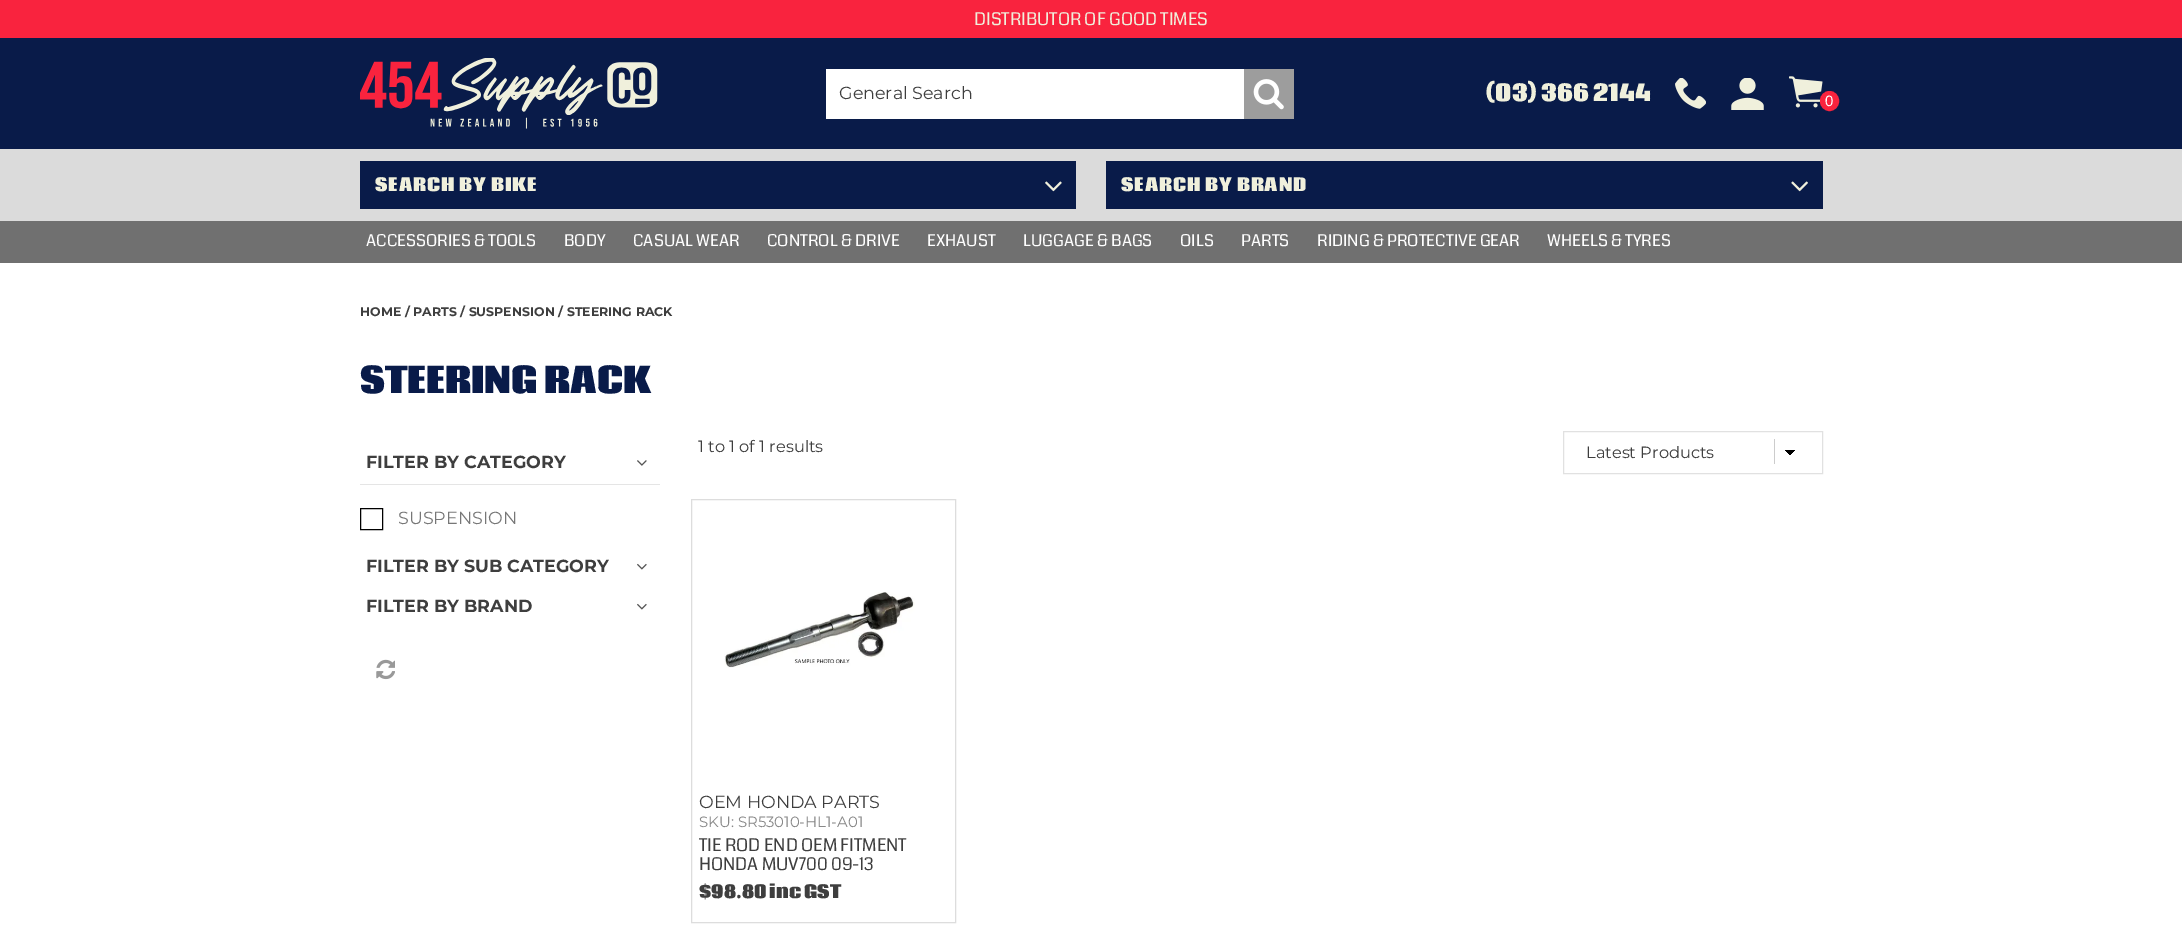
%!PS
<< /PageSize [2182 949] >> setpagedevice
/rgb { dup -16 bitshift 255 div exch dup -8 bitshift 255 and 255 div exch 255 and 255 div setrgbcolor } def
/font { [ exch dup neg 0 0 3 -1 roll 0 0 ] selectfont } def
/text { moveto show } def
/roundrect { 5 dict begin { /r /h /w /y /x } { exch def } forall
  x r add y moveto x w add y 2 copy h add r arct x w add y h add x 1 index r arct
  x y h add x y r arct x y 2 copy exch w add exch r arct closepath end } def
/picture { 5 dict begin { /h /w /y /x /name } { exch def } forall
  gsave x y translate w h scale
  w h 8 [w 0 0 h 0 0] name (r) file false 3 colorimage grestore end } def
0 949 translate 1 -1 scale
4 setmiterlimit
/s1 { /Coda-Regular 17.5 font 16#F0F0DC rgb } def
/s2 { /Montserrat-Regular 17.5 font 16#3E3E3E rgb } def
/s3 { /Coda-ExtraBold 22.5 font 16#F0F0DC rgb } def
/s4 { /LiberationSans-Regular 15 font 16#FFFFFF rgb } def
/s5 { /Coda-Regular 16.25 font 16#FFFFFF rgb } def
/s6 { /Montserrat-Bold 12.5 font 16#3E3E3E rgb } def
/s7 { /Coda-ExtraBold 35 font 16#091B49 rgb } def
/s8 { /Montserrat-Bold 17.5 font 16#3E3E3E rgb } def
/s9 { /Montserrat-Regular 17.5 font 16#777777 rgb } def
/s10 { /Montserrat-Regular 16.25 font 16#3E3E3E rgb } def
/s11 { /Montserrat-Regular 14.9 font 16#888888 rgb } def
/s12 { /Coda-Regular 17.5 font 16#3E3E3E rgb } def
/s13 { /Coda-ExtraBold 17.5 font 16#3E3E3E rgb } def
16#FFFFFF rgb
0 0 2182 949 rectfill
16#F9233E rgb
0 0 2182 38 rectfill
s1
(DISTRIBUTOR OF GOOD TIMES) 974 25 text
16#091B49 rgb
0 38 2182 111 rectfill
(pic1.raw) 360 58 298 71 picture
16#FFFFFF rgb
826 69 418 50 rectfill
s2
(General Search) 839 99 text
16#9D9D9D rgb
1244 69 50 50 rectfill
(pic2.raw) 1253 79 31 31 picture
s3
(\(03\) 366 2144) 1486 101 text
(pic3.raw) 1675 78 31 31 picture
(pic4.raw) 1731 78 33 32 picture
(pic5.raw) 1789 76 34 32 picture
16#F9233E rgb
1821.5 92.5 16 17 8 roundrect gsave fill grestore
3 setlinewidth
stroke
s4
(0) 1825 106 text
16#DBDBDB rgb
0 149 2182 72 rectfill
16#091B49 rgb
360 161 716 48 rectfill
/Coda-ExtraBold 17.5 font
16#F0F0DC rgb
375 191 moveto 0.9 0 (SEARCH BY BIKE) ashow
(pic6.raw) 1045 181 17 11 picture
16#091B49 rgb
1106 161 717 48 rectfill
16#F0F0DC rgb
1121 191 moveto 0.9 0 (SEARCH BY BRAND) ashow
(pic7.raw) 1791 181 17 11 picture
16#707070 rgb
0 221 2182 42 rectfill
s5
(ACCESSORIES & TOOLS) 366 246 text
(BODY) 564 246 text
(CASUAL WEAR) 633 246 text
(CONTROL & DRIVE) 767 246 text
(EXHAUST) 927 246 text
(LUGGAGE & BAGS) 1023 246 text
(OILS) 1180 246 text
(PARTS) 1241 246 text
(RIDING & PROTECTIVE GEAR) 1317 246 text
(WHEELS & TYRES) 1547 246 text
s6
(HOME / PARTS / SUSPENSION / STEERING RACK) 360 316 text
s7
(STEERING RACK) 360 393 text
s8
(FILTER BY CATEGORY) 366 468 text
(pic8.raw) 637 460 10 6 picture
16#E5E5E5 rgb
360 484 300 1 rectfill
16#000000 rgb
1 setlinewidth
360.5 508.5 22 21 rectstroke
s9
(SUSPENSION) 398 524 text
s8
(FILTER BY SUB CATEGORY) 366 572 text
(pic9.raw) 637 563 10 7 picture
(FILTER BY BRAND) 366 612 text
(pic9.raw) 637 603 10 7 picture
(pic10.raw) 376 659 19 21 picture
s10
(1 to 1 of 1 results) 698 452 text
16#E1E1E1 rgb
1563.5 431.5 259 42 rectstroke
16#CCCCCC rgb
1774 439 1 25 rectfill
gsave 1790 450 moveto 1796 450 lineto 1796 455 lineto 1790 455 lineto closepath clip newpath
<< /ShadingType 2 /ColorSpace /DeviceRGB /Coords [1790 449 1796 456] /Extend [true true] /Function << /FunctionType 3 /Domain [0 1] /Functions [<< /FunctionType 2 /Domain [0 1] /C0 [0 0 0] /C1 [0 0 0] /N 1 >> << /FunctionType 2 /Domain [0 1] /C0 [1 1 1] /C1 [1 1 1] /N 1 >>] /Bounds [0.5] /Encode [0 1 0 1] >> >> shfill grestore
gsave 1784 450 moveto 1790 450 lineto 1790 455 lineto 1784 455 lineto closepath clip newpath
<< /ShadingType 2 /ColorSpace /DeviceRGB /Coords [1784 456 1790 449] /Extend [true true] /Function << /FunctionType 3 /Domain [0 1] /Functions [<< /FunctionType 2 /Domain [0 1] /C0 [1 1 1] /C1 [1 1 1] /N 1 >> << /FunctionType 2 /Domain [0 1] /C0 [0 0 0] /C1 [0 0 0] /N 1 >>] /Bounds [0.5] /Encode [0 1 0 1] >> >> shfill grestore
s10
(Latest Products) 1586 458 text
16#DDDDDD rgb
691.5 499.5 264 423 rectstroke
(pic11.raw) 724 592 191 76 picture
s2
(OEM HONDA PARTS) 699 808 text
s11
(SKU: SR53010-HL1-A01) 699 827 text
s12
(TIE ROD END OEM FITMENT) 699 851 text
(HONDA MUV700 09-13) 699 870 text
s13
($98.80 inc GST) 699 898 text
showpage
